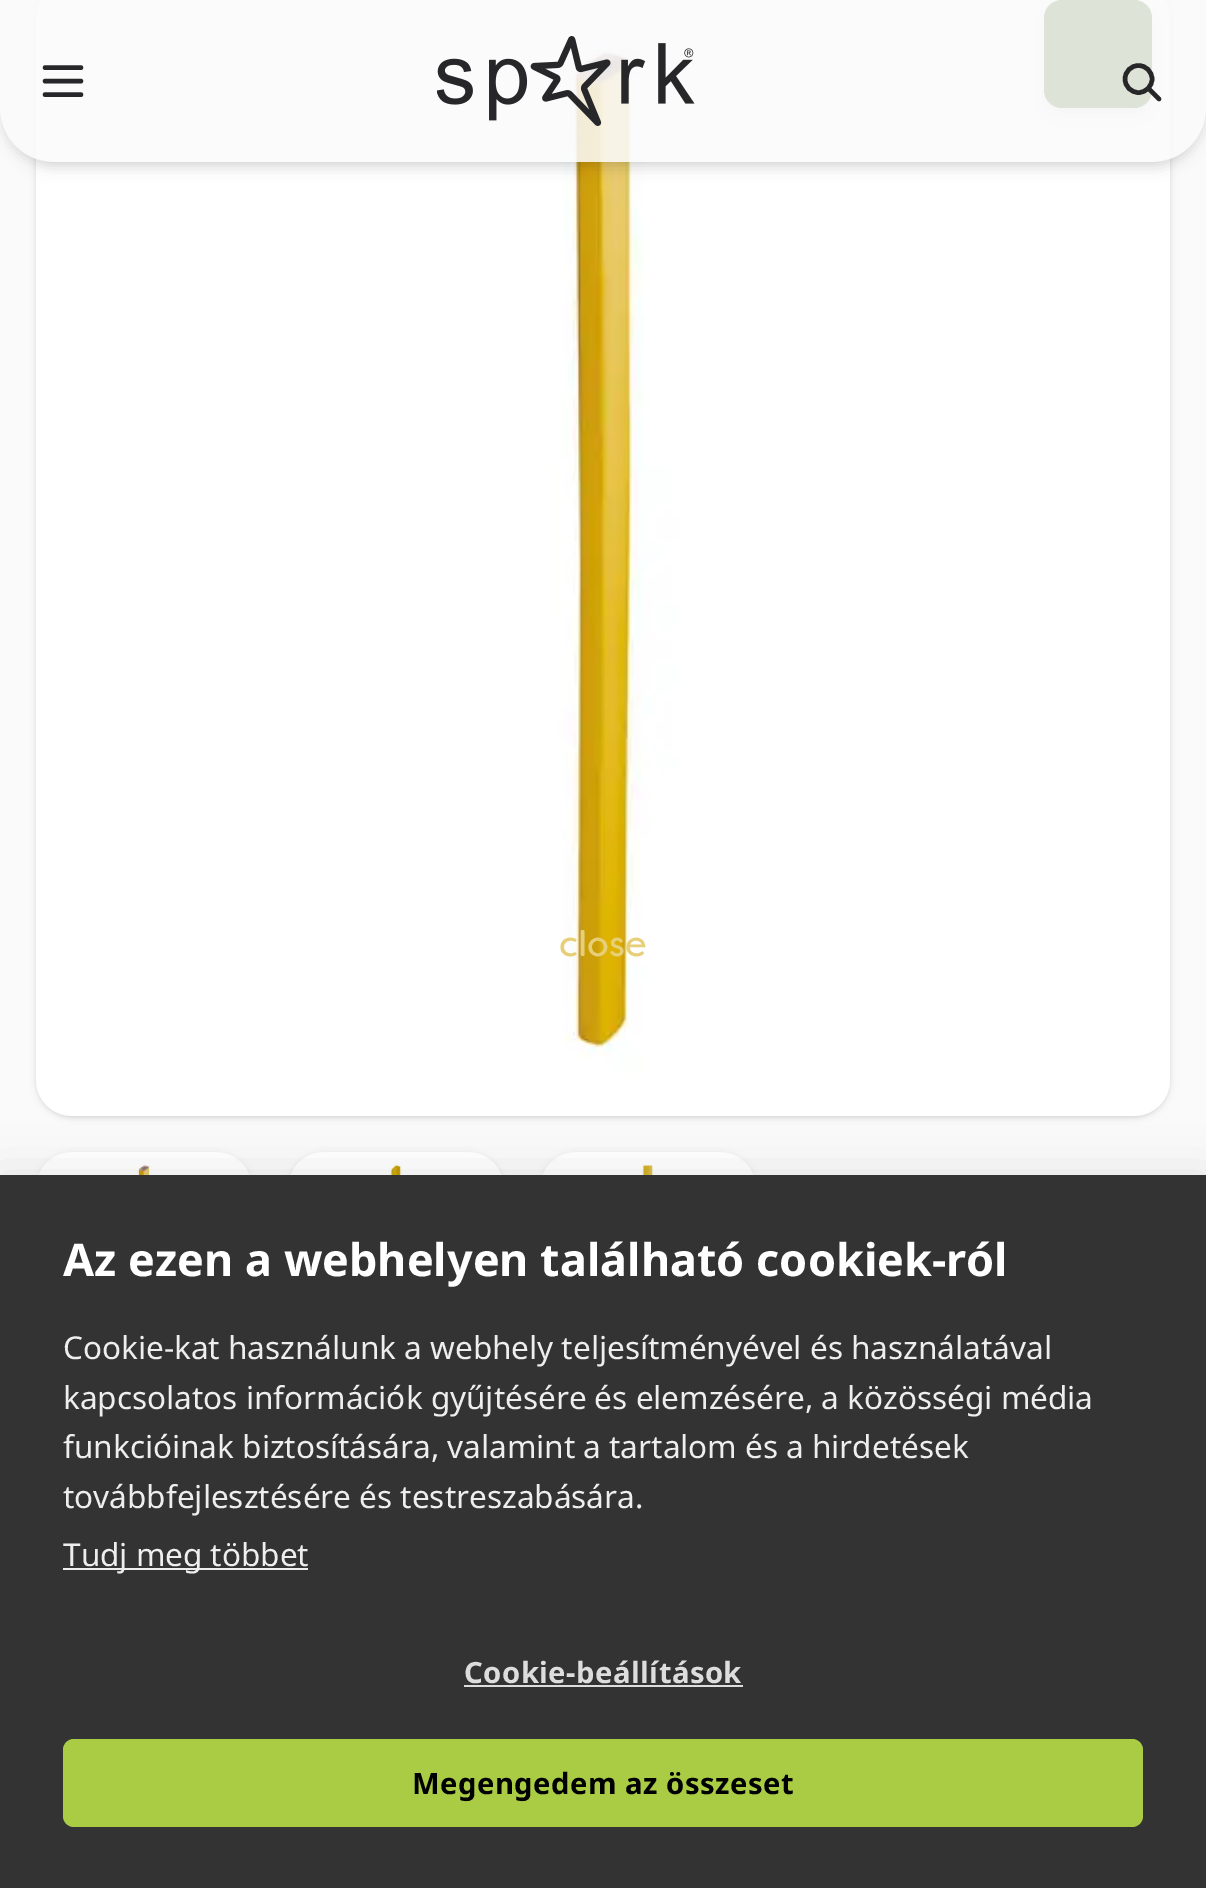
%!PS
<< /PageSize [1206 1888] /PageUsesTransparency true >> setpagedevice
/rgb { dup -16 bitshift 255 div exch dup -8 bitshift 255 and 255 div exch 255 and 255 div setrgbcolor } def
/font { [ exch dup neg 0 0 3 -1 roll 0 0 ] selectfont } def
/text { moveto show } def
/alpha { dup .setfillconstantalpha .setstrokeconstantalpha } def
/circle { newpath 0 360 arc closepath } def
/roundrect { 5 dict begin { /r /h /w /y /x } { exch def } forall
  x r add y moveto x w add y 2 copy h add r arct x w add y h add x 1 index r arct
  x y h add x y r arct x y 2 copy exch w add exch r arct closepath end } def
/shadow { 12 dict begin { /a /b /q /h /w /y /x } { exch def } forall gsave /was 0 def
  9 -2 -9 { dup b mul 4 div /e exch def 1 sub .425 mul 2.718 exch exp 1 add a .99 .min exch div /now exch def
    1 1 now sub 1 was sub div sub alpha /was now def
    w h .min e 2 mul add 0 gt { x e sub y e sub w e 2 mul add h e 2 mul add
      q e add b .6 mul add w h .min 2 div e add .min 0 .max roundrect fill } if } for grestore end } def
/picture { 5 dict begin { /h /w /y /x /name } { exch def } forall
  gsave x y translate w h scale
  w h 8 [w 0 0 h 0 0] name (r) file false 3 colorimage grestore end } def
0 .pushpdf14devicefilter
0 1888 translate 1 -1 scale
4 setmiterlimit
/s1 { /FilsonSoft-Regular 36 font 16#E7CF78 rgb } def
/s2 { /NotoSans-Bold 45 font 16#FFFFFF rgb } def
/s3 { /NotoSans-Regular 31.5 font 16#EEEEEE rgb } def
16#FAFAFB rgb
0 0 1206 1888 rectfill
16#000000 rgb
38 -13 1130 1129 34 2 0.1 shadow
36 -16 1134 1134 36 3.5 0.1 shadow
16#F4F4F5 rgb
36 -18 1134 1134 36 roundrect fill
(pic2.raw) 36 0 1134 1116 picture
16#000000 rgb
1049 9 99 99 14 4.5 0.1 shadow
1046 11 104 104 16 7 0.1 shadow
16#3F6212 rgb
1044 0 108 108 18 roundrect fill
gsave
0 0 moveto 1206 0 lineto 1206 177 lineto 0 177 lineto closepath 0 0 moveto 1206 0 lineto 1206 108 lineto 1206 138 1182 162 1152 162 curveto 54 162 lineto 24 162 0 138 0 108 curveto closepath eoclip newpath
16#000000 rgb
5 9 1197 153 50 4.5 0.1 shadow
grestore
gsave
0 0 moveto 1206 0 lineto 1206 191 lineto 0 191 lineto closepath 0 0 moveto 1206 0 lineto 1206 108 lineto 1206 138 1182 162 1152 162 curveto 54 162 lineto 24 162 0 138 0 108 curveto closepath eoclip newpath
16#000000 rgb
2 11 1202 158 52 7 0.1 shadow
grestore
0.85 alpha
16#FAFAFB rgb
0 0 moveto 1206 0 lineto 1206 108 lineto 1206 138 1182 162 1152 162 curveto 54 162 lineto 24 162 0 138 0 108 curveto closepath fill
1 alpha
16#27272A rgb
4.5 setlinewidth
1 setlinecap
1 setlinejoin
45 67.5 moveto 81 67.5 lineto 45 81 moveto 81 81 lineto 45 94.5 moveto 81 94.5 lineto stroke
(pic1.raw) 437 36 258 90 picture
0 setlinecap
0 setlinejoin
1138.5 79 13.5 circle stroke
1 setlinecap
1 setlinejoin
1150 90 moveto 1159 99 lineto stroke
gsave
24 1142 moveto 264 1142 lineto 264 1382 lineto 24 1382 lineto closepath 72 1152 moveto 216 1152 lineto 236 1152 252 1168 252 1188 curveto 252 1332 lineto 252 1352 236 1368 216 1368 curveto 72 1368 lineto 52 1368 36 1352 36 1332 curveto 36 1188 lineto 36 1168 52 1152 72 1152 curveto closepath eoclip newpath
16#000000 rgb
36 1154 216 216 36 3.5 0.1 shadow
grestore
16#F4F4F5 rgb
36 1152 216 216 36 roundrect fill
(pic3.raw) 38 1152 212 23 picture
gsave
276 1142 moveto 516 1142 lineto 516 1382 lineto 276 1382 lineto closepath 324 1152 moveto 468 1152 lineto 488 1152 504 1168 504 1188 curveto 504 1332 lineto 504 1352 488 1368 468 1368 curveto 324 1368 lineto 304 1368 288 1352 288 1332 curveto 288 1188 lineto 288 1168 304 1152 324 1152 curveto closepath eoclip newpath
16#000000 rgb
288 1154 216 216 36 3.5 0.1 shadow
grestore
288 1152 216 216 36 roundrect fill
(pic4.raw) 290 1152 212 23 picture
gsave
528 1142 moveto 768 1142 lineto 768 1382 lineto 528 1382 lineto closepath 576 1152 moveto 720 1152 lineto 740 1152 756 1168 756 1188 curveto 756 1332 lineto 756 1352 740 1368 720 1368 curveto 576 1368 lineto 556 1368 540 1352 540 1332 curveto 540 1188 lineto 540 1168 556 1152 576 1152 curveto closepath eoclip newpath
16#000000 rgb
540 1154 216 216 36 3.5 0.1 shadow
grestore
540 1152 216 216 36 roundrect fill
(pic5.raw) 542 1152 212 23 picture
s1
(close) 559 956 text
16#000000 rgb
0 1175 1206 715 0 22.5 0.1 shadow
16#333333 rgb
0 1175 1206 713 rectfill
s2
(Az ezen a webhelyen található cookiek-ról) 63 1276 text
s3
(Cookie-kat használunk a webhely teljesítményével és használatával) 63 1359 text
(kapcsolatos információk gyűjtésére és elemzésére, a közösségi média) 63 1409 text
(funkcióinak biztosítására, valamint a tartalom és a hirdetések) 63 1458 text
(továbbfejlesztésére és testreszabására.) 63 1508 text
63 1568 245 2 rectfill
(Tudj meg többet) 63 1566 text
/NotoSans-Bold 29.25 font
16#DDDDDD rgb
464 1683 moveto 0.45 0 (Cookie-beállítások) ashow
464 1685 279 2 rectfill
16#AACC44 rgb
63 1739 1080 88 11 roundrect fill
16#000000 rgb
412 1794 moveto 0.45 0 (Megengedem az összeset) ashow
.poppdf14devicefilter showpage
